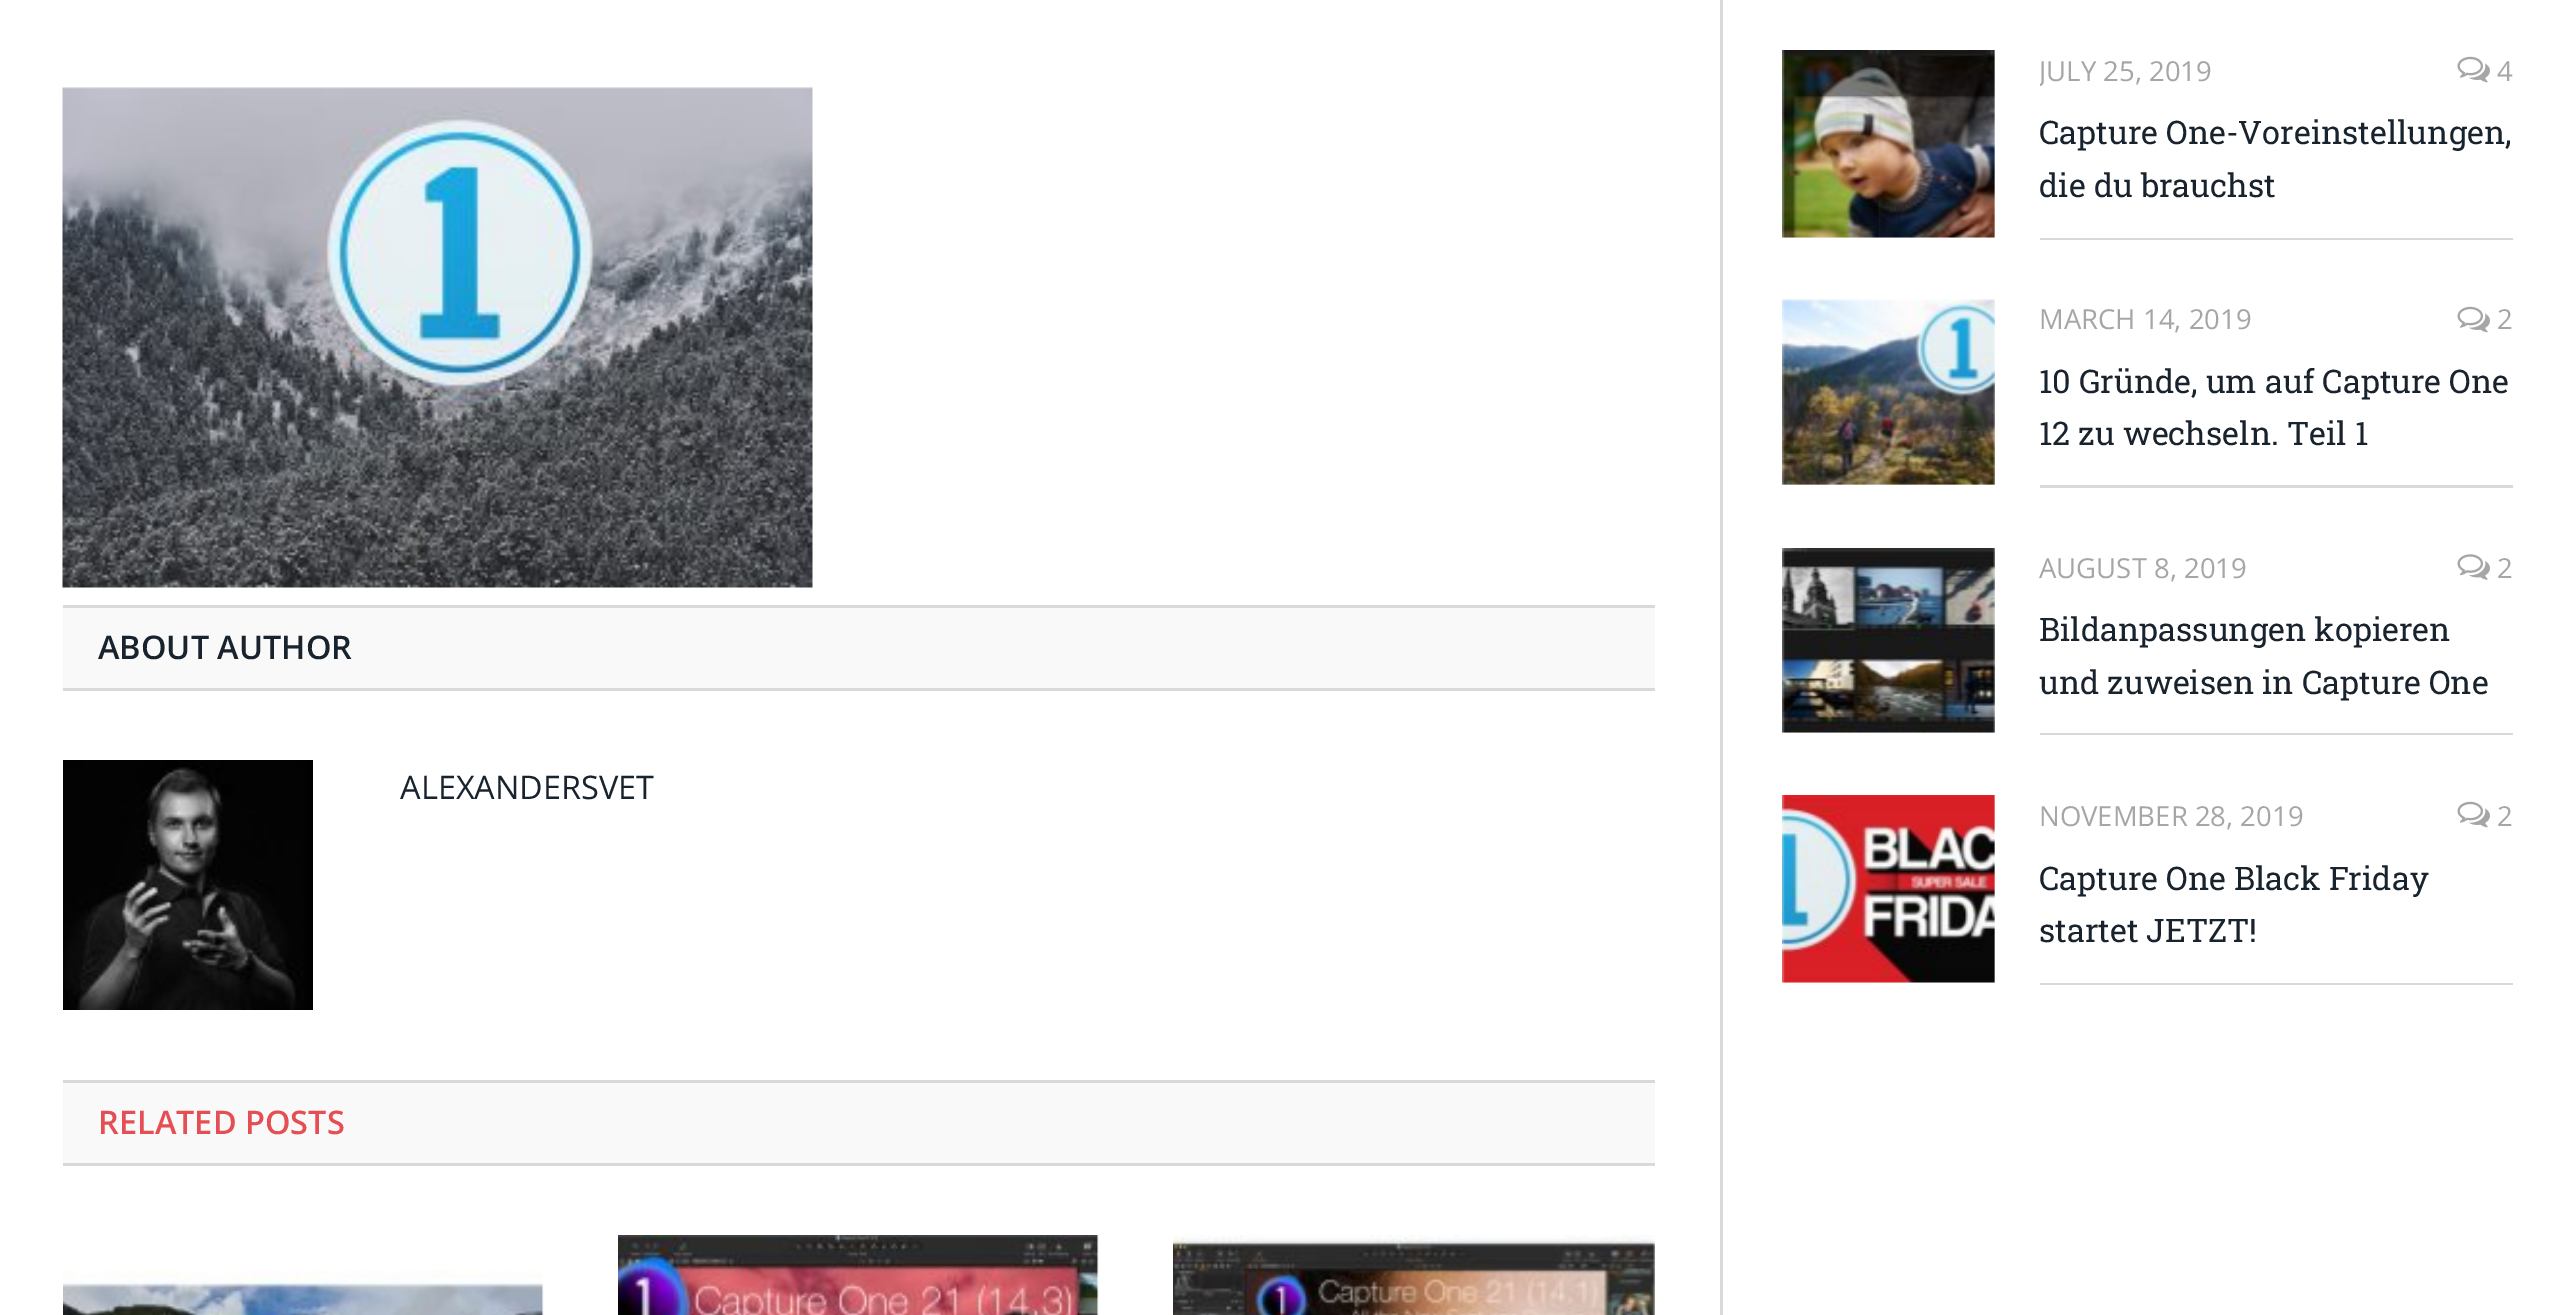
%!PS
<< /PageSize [2574 1315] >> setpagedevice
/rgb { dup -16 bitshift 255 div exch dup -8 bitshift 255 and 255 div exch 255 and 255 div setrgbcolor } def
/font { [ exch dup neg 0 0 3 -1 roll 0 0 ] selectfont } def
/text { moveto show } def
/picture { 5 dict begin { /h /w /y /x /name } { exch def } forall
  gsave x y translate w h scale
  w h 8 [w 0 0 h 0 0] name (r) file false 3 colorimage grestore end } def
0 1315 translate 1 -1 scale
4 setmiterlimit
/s1 { /OpenSans-SemiBold 32.5 font 16#19232D rgb } def
/s2 { /OpenSans-Regular 32.5 font 16#19232D rgb } def
/s3 { /OpenSans-SemiBold 32.5 font 16#E54E53 rgb } def
/s4 { /OpenSans-Regular 27.5 font 16#A6A6A6 rgb } def
/s5 { /RobotoSlab-Regular 32.5 font 16#19232D rgb } def
16#FFFFFF rgb
0 0 2574 1315 rectfill
(pic1.raw) 62 87 751 501 picture
16#F9F9F9 rgb
63 608 1592 80 rectfill
16#D9D9D9 rgb
63 605 1592 3 rectfill
63 688 1592 3 rectfill
s1
(ABOUT AUTHOR) 98 659 text
(pic2.raw) 63 760 250 250 picture
s2
(ALEXANDERSVET) 400 799 text
16#F9F9F9 rgb
63 1083 1592 80 rectfill
16#D9D9D9 rgb
63 1080 1592 3 rectfill
63 1163 1592 3 rectfill
s3
(RELATED POSTS) 98 1134 text
(pic3.raw) 63 1270 481 45 picture
(pic4.raw) 618 1235 481 80 picture
(pic5.raw) 1173 1235 482 80 picture
16#D9D9D9 rgb
1720 0 3 1315 rectfill
(pic6.raw) 1782 50 213 188 picture
2040 238 473 2 rectfill
gsave
2040 50 473 188 rectclip
s4
(JULY 25, 2019) 2039 81 text
grestore
(pic7.raw) 2457 56 33 27 picture
s4
(4) 2497 81 text
s5
(Capture One-Voreinstellungen,) 2039 144 text
(die du brauchst) 2039 197 text
(pic8.raw) 1782 299 213 186 picture
16#D9D9D9 rgb
2040 485 473 3 rectfill
s4
(MARCH 14, 2019) 2039 329 text
(pic7.raw) 2457 306 33 27 picture
(2) 2497 329 text
s5
(10 Gründe, um auf Capture One) 2039 393 text
(12 zu wechseln. Teil 1) 2039 445 text
(pic9.raw) 1782 548 213 185 picture
16#D9D9D9 rgb
2040 733 473 2 rectfill
s4
(AUGUST 8, 2019) 2039 578 text
(pic10.raw) 2457 554 33 26 picture
(2) 2497 578 text
s5
(Bildanpassungen kopieren) 2039 641 text
(und zuweisen in Capture One) 2039 694 text
(pic11.raw) 1782 795 213 188 picture
16#D9D9D9 rgb
2040 983 473 2 rectfill
s4
(NOVEMBER 28, 2019) 2039 826 text
(pic7.raw) 2457 801 33 27 picture
(2) 2497 826 text
s5
(Capture One Black Friday) 2039 890 text
(startet JETZT!) 2039 942 text
showpage
